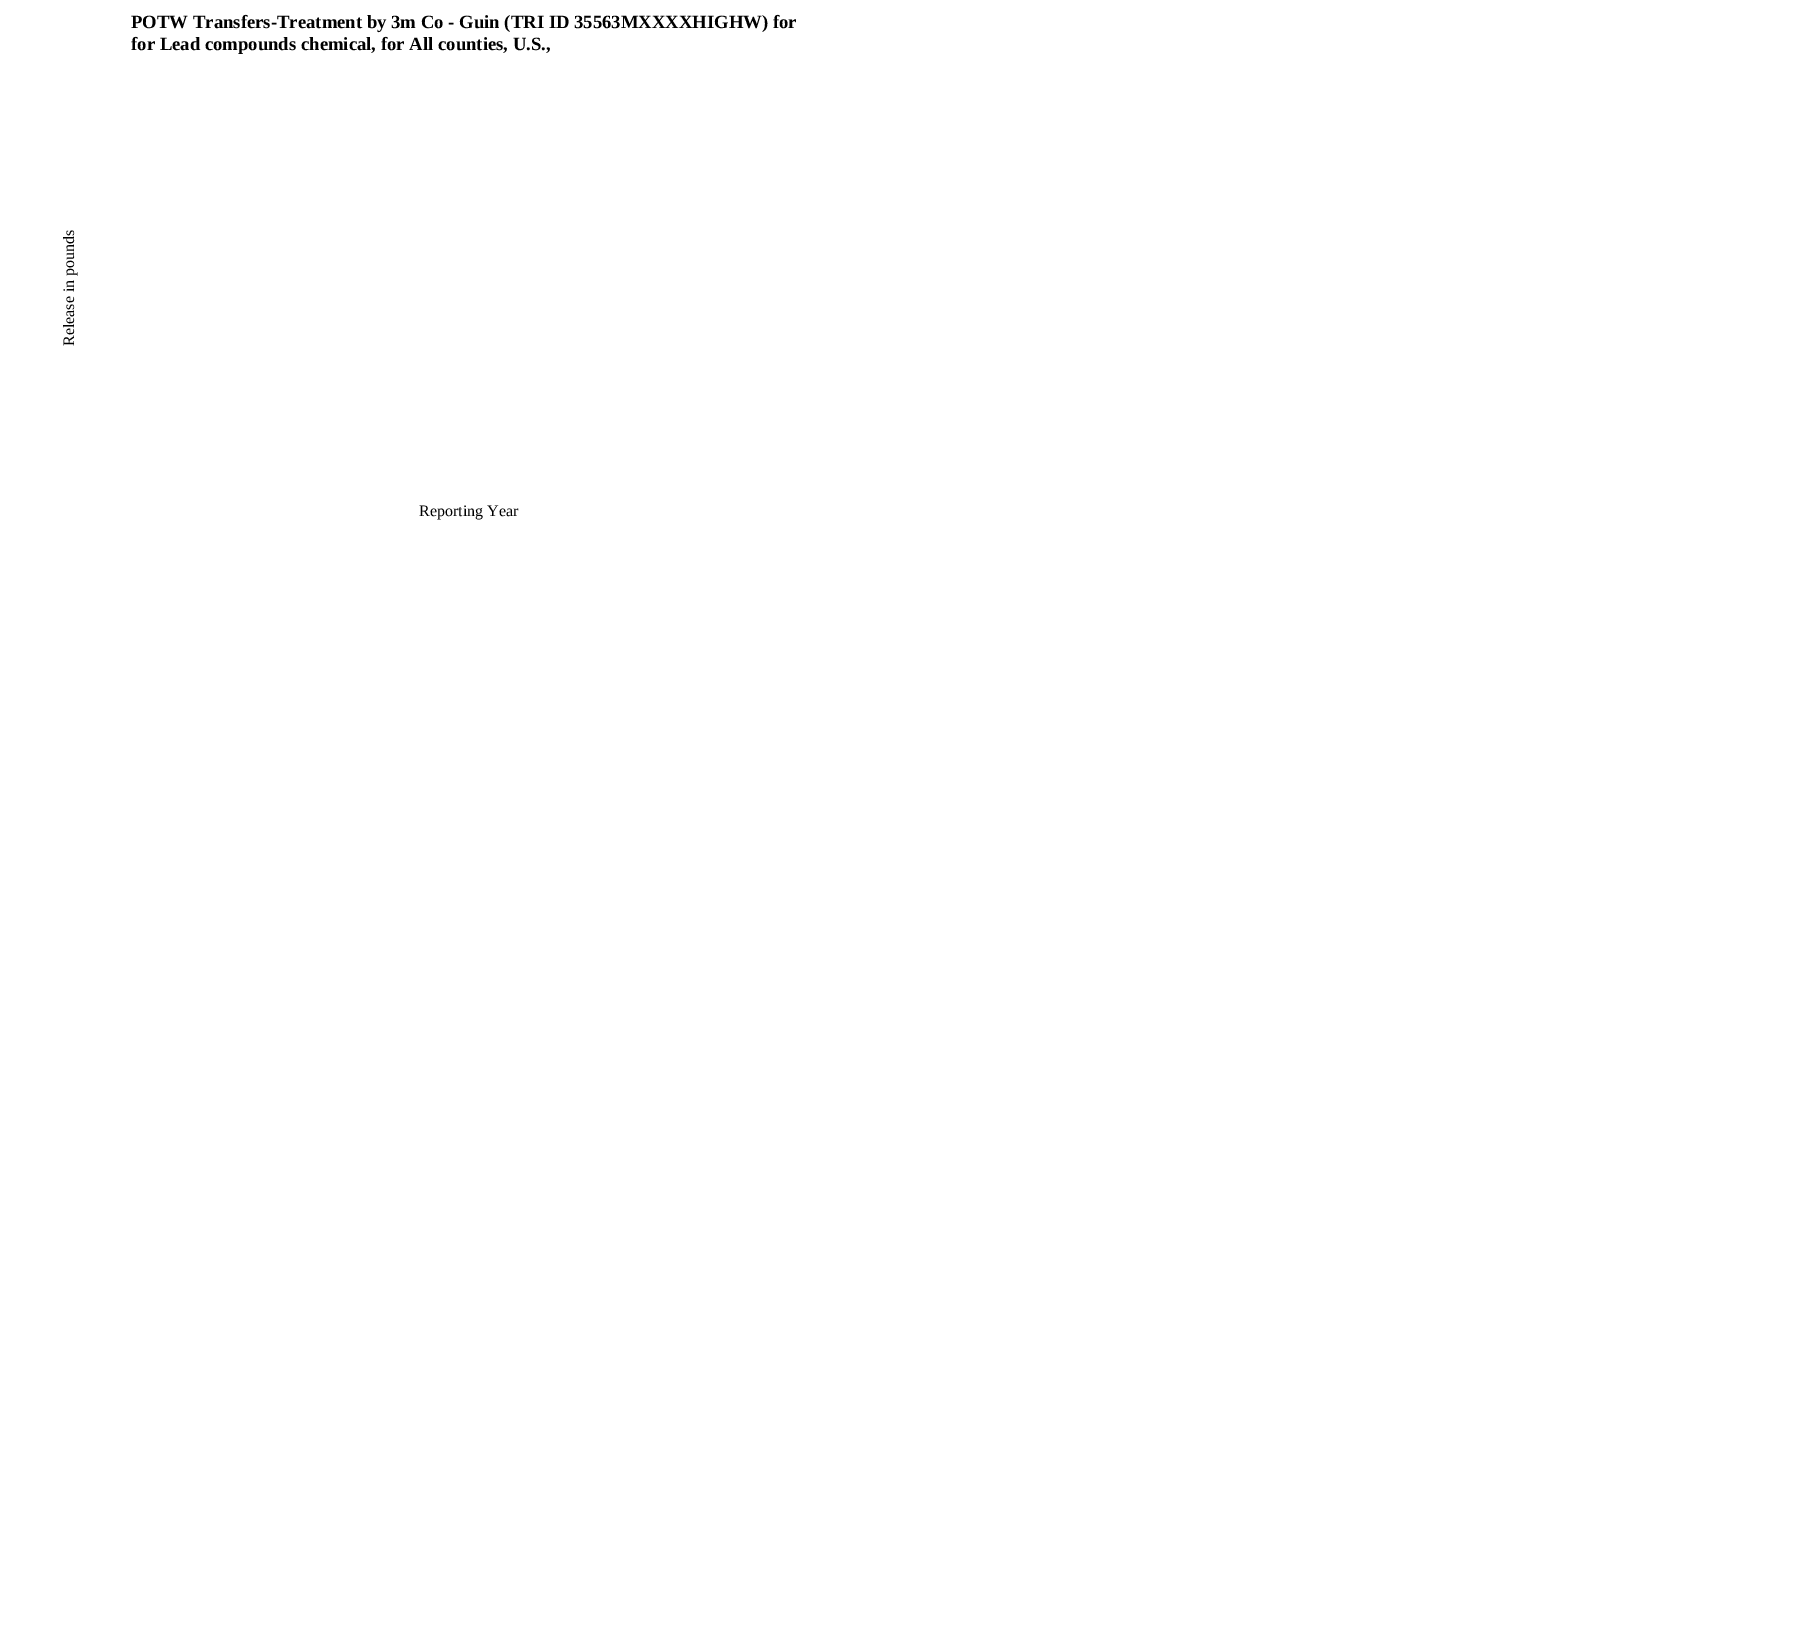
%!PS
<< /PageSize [1820 1632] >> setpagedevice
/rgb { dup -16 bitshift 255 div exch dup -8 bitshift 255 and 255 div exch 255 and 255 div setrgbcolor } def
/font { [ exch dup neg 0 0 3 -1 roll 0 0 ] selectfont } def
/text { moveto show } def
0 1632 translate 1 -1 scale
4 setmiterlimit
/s1 { /LiberationSerif-Bold 18.7 font 16#000000 rgb } def
/s2 { /LiberationSerif-Regular 16 font 16#000000 rgb } def
16#FFFFFF rgb
0 0 1820 1632 rectfill
s1
(POTW Transfers-Treatment by 3m Co - Guin \(TRI ID 35563MXXXXHIGHW\) for) 131 28 text
(for Lead compounds chemical, for All counties, U.S.,) 131 50 text
/LiberationSerif-Regular 16 font
gsave 74 346 translate -90 rotate 0 0 moveto (Release in pounds) show grestore
(Reporting Year) 419 516 text
showpage
